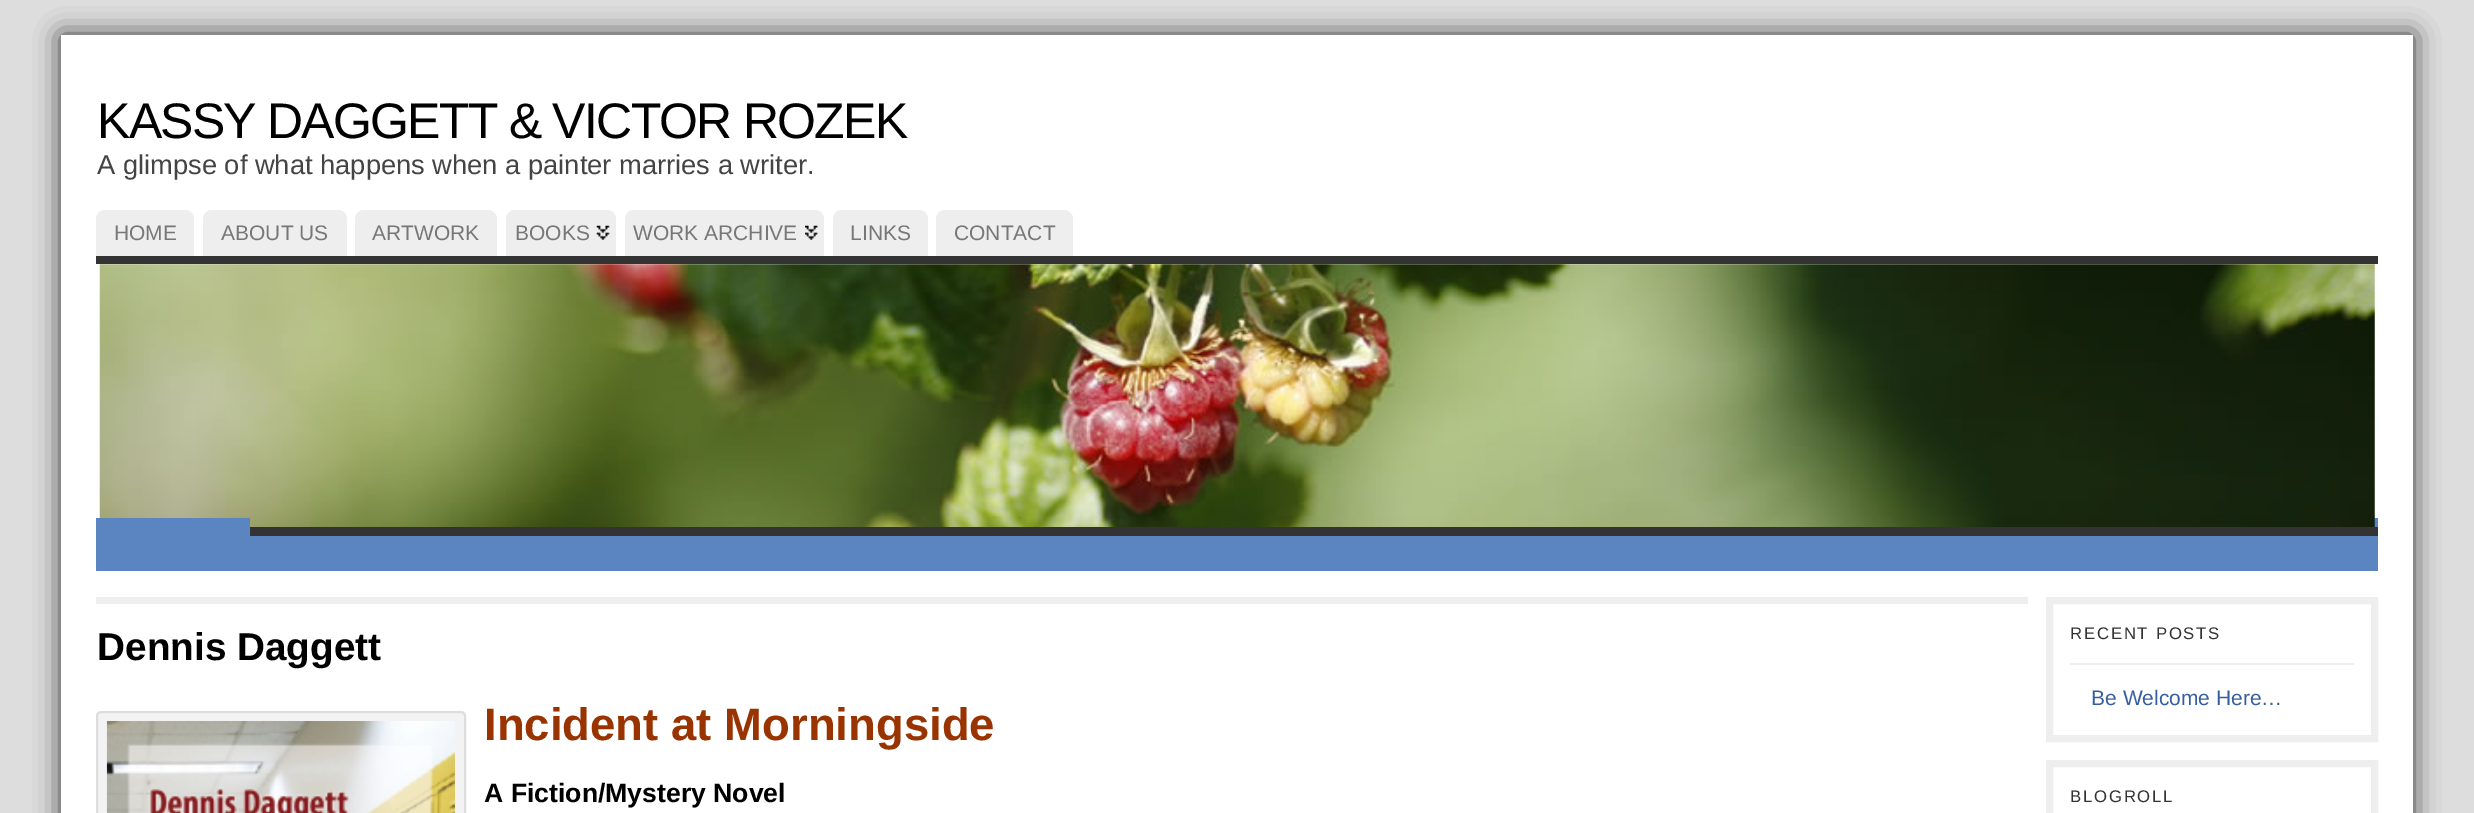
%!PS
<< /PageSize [2474 813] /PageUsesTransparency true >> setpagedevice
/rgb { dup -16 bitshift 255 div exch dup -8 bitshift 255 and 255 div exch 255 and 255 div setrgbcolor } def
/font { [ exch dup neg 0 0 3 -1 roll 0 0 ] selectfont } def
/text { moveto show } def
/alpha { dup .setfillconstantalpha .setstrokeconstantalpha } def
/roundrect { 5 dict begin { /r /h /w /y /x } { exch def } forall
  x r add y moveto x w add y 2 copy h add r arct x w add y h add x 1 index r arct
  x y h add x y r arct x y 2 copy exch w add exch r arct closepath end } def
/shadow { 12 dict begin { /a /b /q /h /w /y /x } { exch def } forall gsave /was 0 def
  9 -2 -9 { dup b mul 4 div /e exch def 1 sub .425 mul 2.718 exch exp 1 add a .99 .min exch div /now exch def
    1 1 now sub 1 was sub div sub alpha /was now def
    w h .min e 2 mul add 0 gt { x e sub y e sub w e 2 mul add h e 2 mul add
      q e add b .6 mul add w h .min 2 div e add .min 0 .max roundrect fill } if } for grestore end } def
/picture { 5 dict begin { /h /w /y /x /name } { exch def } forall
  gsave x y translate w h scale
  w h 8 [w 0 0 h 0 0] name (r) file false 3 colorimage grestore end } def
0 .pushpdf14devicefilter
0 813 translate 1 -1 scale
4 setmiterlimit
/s1 { /LiberationSans-Regular 27.3 font 16#444444 rgb } def
/s2 { /LiberationSans-Regular 21 font 16#777777 rgb } def
/s3 { /LiberationSans-Bold 38.75 font 16#000000 rgb } def
/s4 { /LiberationSans-Bold 45.5 font 16#993300 rgb } def
/s5 { /LiberationSans-Bold 26.6 font 16#000000 rgb } def
/s6 { /LiberationSans-Regular 21 font 16#365DA0 rgb } def
16#DDDDDD rgb
0 0 2474 813 rectfill
16#333333 rgb
61 35 2352 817 0 13 1 shadow
16#FFFFFF rgb
61 35 2352 778 rectfill
/LiberationSans-Regular 50 font
16#000000 rgb
97 138 moveto -1.75 0 (KASSY DAGGETT & VICTOR ROZEK) ashow
s1
(A glimpse of what happens when a painter marries a writer.) 97 174 text
16#EEEEEE rgb
105 210 moveto 185 210 lineto 190 210 194 214 194 219 curveto 194 256 lineto 96 256 lineto 96 219 lineto 96 214 100 210 105 210 curveto closepath fill
s2
(HOME) 114 240 text
16#EEEEEE rgb
212 210 moveto 338 210 lineto 343 210 347 214 347 219 curveto 347 256 lineto 203 256 lineto 203 219 lineto 203 214 207 210 212 210 curveto closepath fill
s2
(ABOUT US) 221 240 text
16#EEEEEE rgb
364 210 moveto 488 210 lineto 493 210 497 214 497 219 curveto 497 256 lineto 355 256 lineto 355 219 lineto 355 214 359 210 364 210 curveto closepath fill
s2
(ARTWORK) 372 240 text
16#EEEEEE rgb
515 210 moveto 607 210 lineto 612 210 616 214 616 219 curveto 616 256 lineto 506 256 lineto 506 219 lineto 506 214 510 210 515 210 curveto closepath fill
(pic1.raw) 596 225 14 15 picture
s2
(BOOKS) 515 240 text
16#EEEEEE rgb
634 210 moveto 815 210 lineto 820 210 824 214 824 219 curveto 824 256 lineto 625 256 lineto 625 219 lineto 625 214 629 210 634 210 curveto closepath fill
(pic2.raw) 805 225 13 15 picture
s2
(WORK ARCHIVE) 633 240 text
16#EEEEEE rgb
842 210 moveto 919 210 lineto 924 210 928 214 928 219 curveto 928 256 lineto 833 256 lineto 833 219 lineto 833 214 837 210 842 210 curveto closepath fill
s2
(LINKS) 850 240 text
16#EEEEEE rgb
945 210 moveto 1064 210 lineto 1069 210 1073 214 1073 219 curveto 1073 256 lineto 936 256 lineto 936 219 lineto 936 214 940 210 945 210 curveto closepath fill
s2
(CONTACT) 954 240 text
16#5A85C1 rgb
250 518 2128 53 rectfill
(pic3.raw) 99 264 2276 263 picture
16#333333 rgb
96 256 2282 8 rectfill
250 527 2128 9 rectfill
16#5A85C1 rgb
96 518 154 53 rectfill
16#EEEEEE rgb
96 597 1932 7 rectfill
s3
(Dennis Daggett) 97 660 text
16#F3F3F3 rgb
97 712 368 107 4 roundrect gsave fill grestore
16#DDDDDD rgb
2 setlinewidth
stroke
(pic4.raw) 106 721 349 92 picture
s4
(Incident at Morningside) 484 740 text
s5
(A Fiction/Mystery Novel) 484 802 text
16#EEEEEE rgb
7 setlinewidth
2049.5 600.5 325 138 rectstroke
2070 663 284 2 rectfill
/LiberationSans-Regular 16.75 font
16#333333 rgb
2070 639 moveto 1.75 0 (RECENT POSTS) ashow
s6
(Be Welcome Here…) 2091 705 text
16#EEEEEE rgb
2049.5 763.5 325 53 rectstroke
/LiberationSans-Regular 16.75 font
16#333333 rgb
2070 802 moveto 1.75 0 (BLOGROLL) ashow
.poppdf14devicefilter showpage
